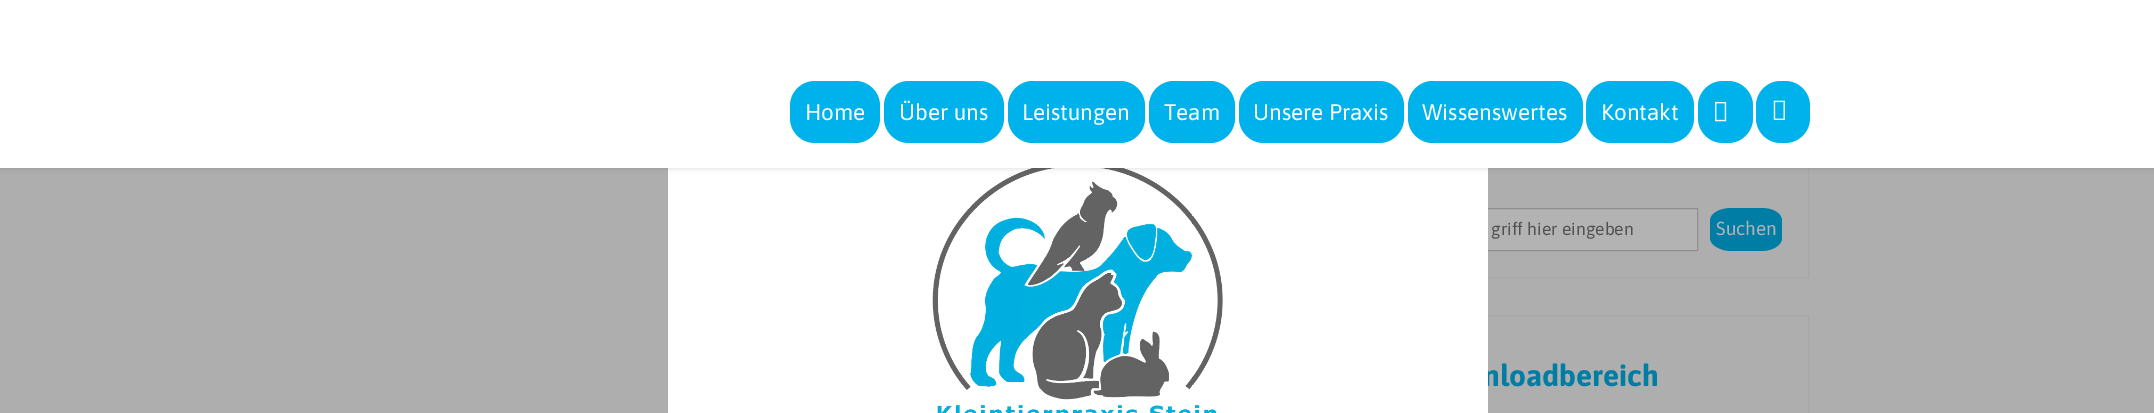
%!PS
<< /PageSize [2154 413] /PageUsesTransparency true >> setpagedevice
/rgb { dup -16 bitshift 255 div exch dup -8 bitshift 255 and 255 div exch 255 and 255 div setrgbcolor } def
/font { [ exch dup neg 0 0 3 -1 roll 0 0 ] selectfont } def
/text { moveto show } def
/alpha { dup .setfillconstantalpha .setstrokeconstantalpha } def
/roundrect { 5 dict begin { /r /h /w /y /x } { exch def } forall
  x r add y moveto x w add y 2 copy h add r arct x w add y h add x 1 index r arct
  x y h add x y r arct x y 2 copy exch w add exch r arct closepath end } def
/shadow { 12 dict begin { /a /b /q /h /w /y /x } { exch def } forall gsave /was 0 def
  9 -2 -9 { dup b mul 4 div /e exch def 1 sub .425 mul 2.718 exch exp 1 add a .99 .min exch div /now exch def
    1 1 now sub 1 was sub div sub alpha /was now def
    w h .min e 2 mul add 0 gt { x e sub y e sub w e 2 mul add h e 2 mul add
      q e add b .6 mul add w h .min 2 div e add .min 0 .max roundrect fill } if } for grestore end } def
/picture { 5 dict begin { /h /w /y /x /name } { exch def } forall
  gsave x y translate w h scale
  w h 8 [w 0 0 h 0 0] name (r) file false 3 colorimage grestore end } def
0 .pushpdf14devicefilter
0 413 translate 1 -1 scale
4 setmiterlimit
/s1 { /Asap-Bold 30 font 16#007DA5 rgb } def
/s2 { /Asap-Regular 22.5 font 16#FFFFFF rgb } def
/s3 { /Asap-Regular 17.5 font 16#525252 rgb } def
/s4 { /Asap-Regular 19 font 16#B3B3B3 rgb } def
16#AEAEAE rgb
0 0 2154 413 rectfill
16#A7A7A7 rgb
1396.5 150.5 412 127 rectstroke
16#B3B3B3 rgb
1488 209 209 41 rectfill
16#8F8F8F rgb
1423.5 208.5 274 42 rectstroke
16#A7A7A7 rgb
1396.5 315.5 412 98 rectstroke
s1
(nloadbereich) 1483 386 text
16#FFFFFF rgb
668 168 820 245 rectfill
(pic3.raw) 932 168 291 245 picture
16#000000 rgb
0 0 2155 168 0 3 0.15 shadow
16#FFFFFF rgb
0 0 2154 168 rectfill
16#00B2EB rgb
790 81 90 62 25 roundrect fill
s2
(Home) 805 120 text
16#00B2EB rgb
884 81 120 62 25 roundrect fill
s2
(Über uns) 899 120 text
16#00B2EB rgb
1008 81 137 62 25 roundrect fill
s2
(Leistungen) 1022 120 text
16#00B2EB rgb
1149 81 86 62 25 roundrect fill
s2
(Team) 1164 120 text
16#00B2EB rgb
1239 81 165 62 25 roundrect fill
s2
(Unsere Praxis) 1253 120 text
16#00B2EB rgb
1408 81 175 62 25 roundrect fill
s2
(Wissenswertes) 1422 120 text
16#00B2EB rgb
1586 81 108 62 25 roundrect fill
s2
(Kontakt) 1601 120 text
16#00B2EB rgb
1698 81 55 62 25 roundrect fill
(pic1.raw) 1715 101 12 21 picture
1756 81 54 62 25 roundrect fill
(pic2.raw) 1773 100 12 20 picture
s3
(griff hier eingeben) 1491 235 text
16#007DA5 rgb
1732 208 moveto 1761 208 lineto 1773 208 1782 213 1782 221 curveto 1782 238 lineto 1782 245 1773 251 1761 251 curveto 1732 251 lineto 1720 251 1710 245 1710 238 curveto 1710 221 lineto 1710 213 1720 208 1732 208 curveto closepath fill
s4
(Suchen) 1716 235 text
.poppdf14devicefilter showpage
